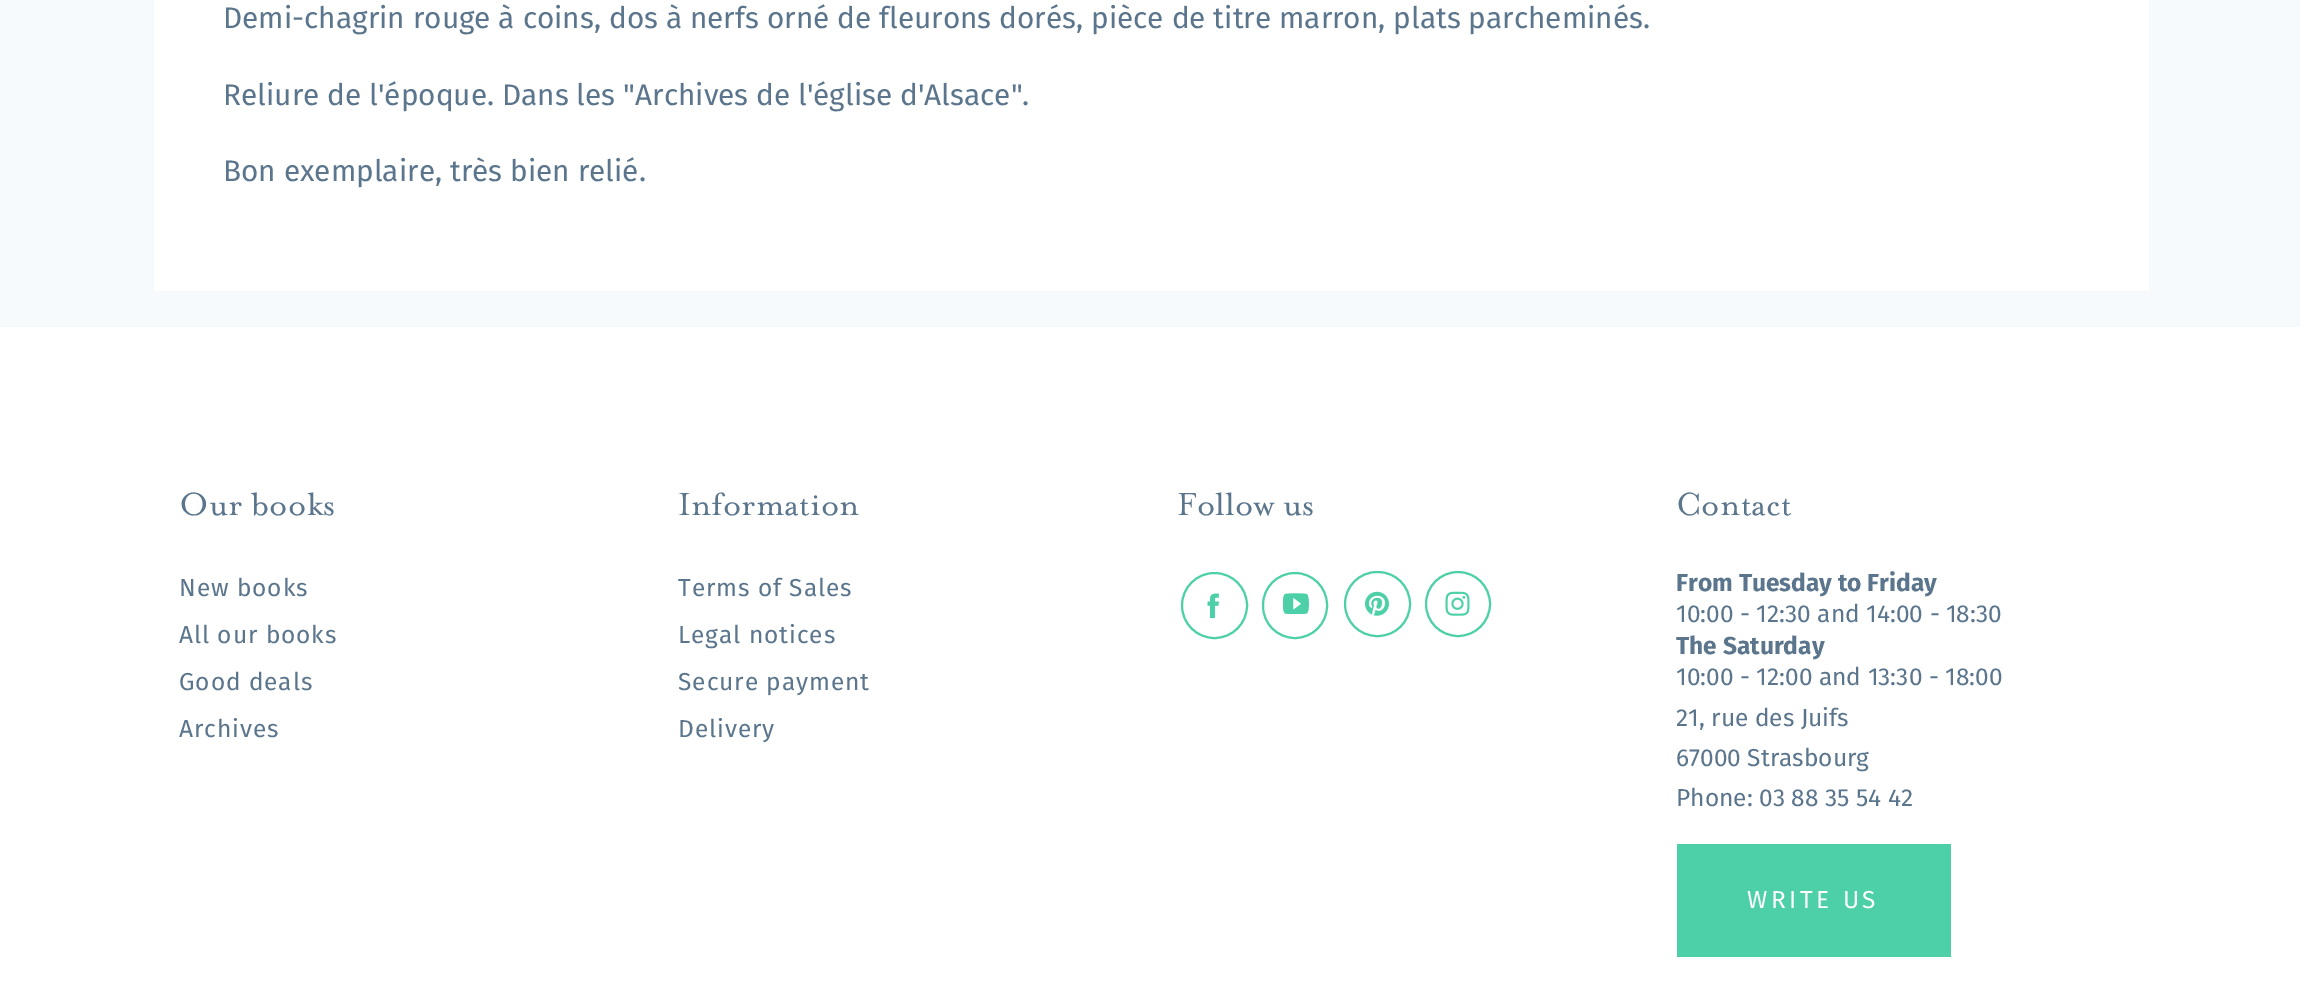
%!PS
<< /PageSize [2300 998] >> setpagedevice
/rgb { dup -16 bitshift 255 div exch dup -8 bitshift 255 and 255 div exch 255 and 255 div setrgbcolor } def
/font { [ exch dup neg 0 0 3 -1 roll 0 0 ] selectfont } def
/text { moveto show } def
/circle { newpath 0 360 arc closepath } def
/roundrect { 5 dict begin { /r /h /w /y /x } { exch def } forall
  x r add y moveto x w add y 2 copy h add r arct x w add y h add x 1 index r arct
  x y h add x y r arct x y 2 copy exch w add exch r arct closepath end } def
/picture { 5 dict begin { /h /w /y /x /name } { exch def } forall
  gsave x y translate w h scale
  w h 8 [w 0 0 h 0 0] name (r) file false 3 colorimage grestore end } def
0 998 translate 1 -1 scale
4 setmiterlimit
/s1 { /FiraSans-Regular 29.75 font 16#5A758C rgb } def
/s2 { /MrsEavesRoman-Regular 36.75 font 16#5A758C rgb } def
/s3 { /FiraSans-Bold 24.5 font 16#5A758C rgb } def
/s4 { /FiraSans-Regular 24.5 font 16#5A758C rgb } def
16#FFFFFF rgb
0 0 2300 998 rectfill
16#F7FAFD rgb
0 0 2300 327 rectfill
16#FFFFFF rgb
154 0 1995 291 rectfill
s1
(Demi-chagrin rouge à coins, dos à nerfs orné de fleurons dorés, pièce de titre marron, plats parcheminés.) 223 28 text
(Reliure de l'époque. Dans les "Archives de l'église d'Alsace".) 223 105 text
(Bon exemplaire, très bien relié.) 223 181 text
s2
(Our books) 179 515 text
/FiraSans-Regular 24.5 font
179 596 moveto 0.9 0 (New books) ashow
179 643 moveto 0.9 0 (All our books) ashow
179 690 moveto 0.9 0 (Good deals) ashow
179 737 moveto 0.9 0 (Archives) ashow
s2
(Information) 678 515 text
/FiraSans-Regular 24.5 font
678 596 moveto 0.9 0 (Terms of Sales) ashow
678 643 moveto 0.9 0 (Legal notices) ashow
678 690 moveto 0.9 0 (Secure payment) ashow
678 737 moveto 0.9 0 (Delivery) ashow
s2
(Follow us) 1177 515 text
16#4DD0A8 rgb
2 setlinewidth
1214.5 605.5 32.5 circle stroke
(pic1.raw) 1207 593 12 26 picture
1263 573 64 65 32 roundrect stroke
(pic2.raw) 1283 593 26 21 picture
1345 572 65 64 32 roundrect stroke
(pic3.raw) 1365 591 24 25 picture
1458 604 32 circle stroke
(pic4.raw) 1445 591 25 25 picture
s2
(Contact) 1676 515 text
s3
(From Tuesday to Friday) 1676 591 text
s4
(10:00 - 12:30 and 14:00 - 18:30) 1676 622 text
s3
(The Saturday) 1676 654 text
s4
(10:00 - 12:00 and 13:30 - 18:00) 1676 685 text
(21, rue des Juifs) 1676 726 text
(67000 Strasbourg) 1676 766 text
(Phone: 03 88 35 54 42) 1676 806 text
16#4DD0A8 rgb
1677 844 274 113 rectfill
16#FFFFFF rgb
1747 908 moveto 3.5 0 (WRITE US) ashow
showpage
